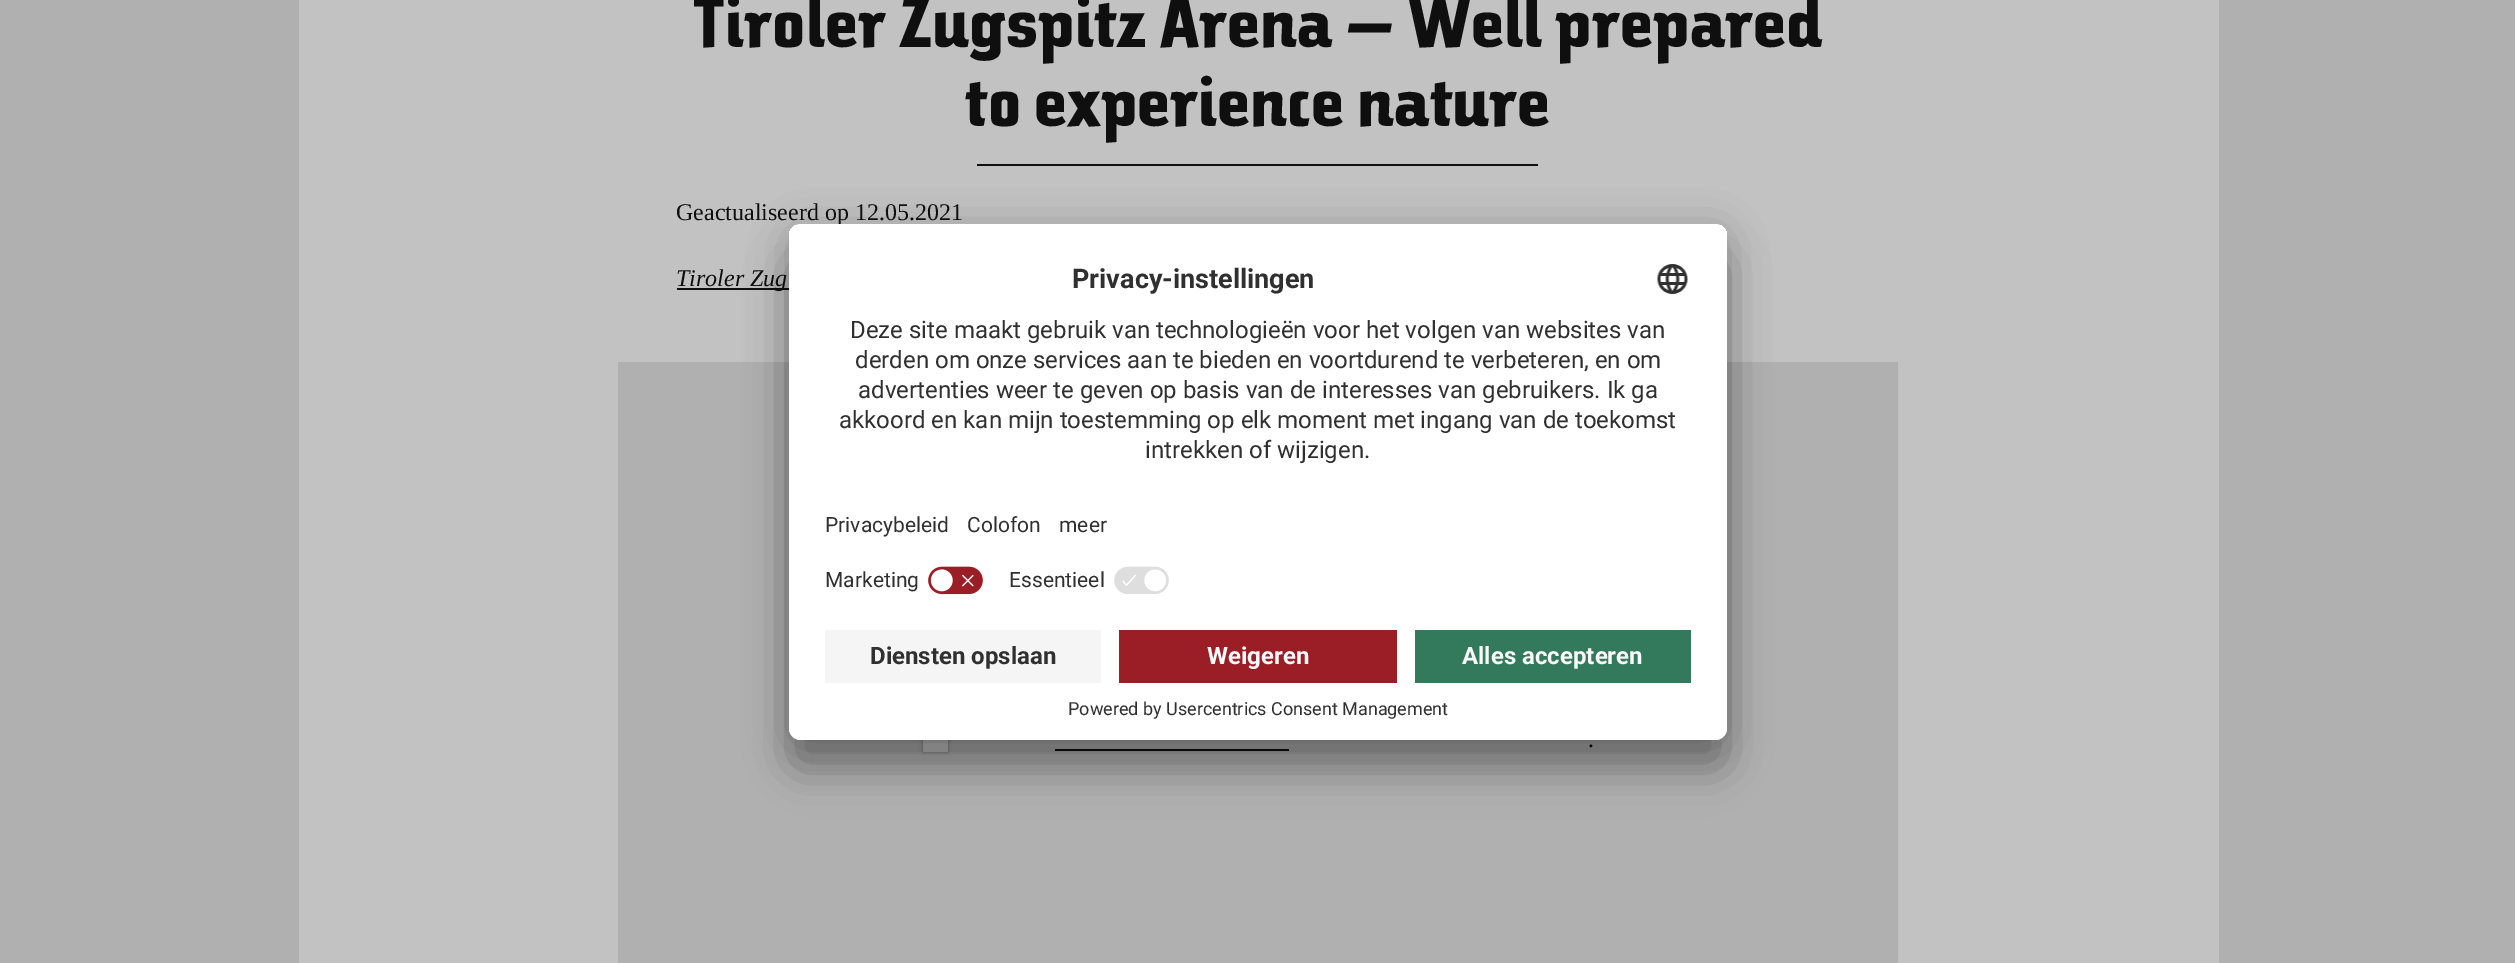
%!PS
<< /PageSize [2515 963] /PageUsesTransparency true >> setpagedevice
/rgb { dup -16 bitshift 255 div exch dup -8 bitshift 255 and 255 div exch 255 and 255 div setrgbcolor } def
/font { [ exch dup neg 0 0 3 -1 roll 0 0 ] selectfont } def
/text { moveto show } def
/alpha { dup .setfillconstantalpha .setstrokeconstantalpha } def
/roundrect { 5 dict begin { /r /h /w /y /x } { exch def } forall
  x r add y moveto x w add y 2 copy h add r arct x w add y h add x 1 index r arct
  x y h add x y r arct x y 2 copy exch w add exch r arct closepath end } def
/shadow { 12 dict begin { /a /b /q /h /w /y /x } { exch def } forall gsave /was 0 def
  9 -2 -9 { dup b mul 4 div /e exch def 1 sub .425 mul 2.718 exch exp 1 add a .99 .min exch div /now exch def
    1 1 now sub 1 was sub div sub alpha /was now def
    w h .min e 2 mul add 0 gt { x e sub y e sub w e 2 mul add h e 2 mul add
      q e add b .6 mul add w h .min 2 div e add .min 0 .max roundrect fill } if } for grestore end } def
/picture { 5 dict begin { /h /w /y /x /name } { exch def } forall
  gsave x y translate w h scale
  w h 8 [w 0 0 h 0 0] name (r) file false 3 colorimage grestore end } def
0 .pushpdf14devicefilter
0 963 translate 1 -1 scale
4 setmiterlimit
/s1 { /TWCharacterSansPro-Regular 72 font 16#0F0F0F rgb } def
/s2 { /LiberationSerif-Regular 24 font 16#0F0F0F rgb } def
/s3 { /LiberationSerif-Italic 24 font 16#0F0F0F rgb } def
/s4 { /Roboto-Bold 27 font 16#303030 rgb } def
/s5 { /Roboto-Regular 24 font 16#303030 rgb } def
/s6 { /Roboto-Regular 21 font 16#303030 rgb } def
/s7 { /Roboto-Bold 24 font 16#303030 rgb } def
/s8 { /Roboto-Bold 24 font 16#FAFAFA rgb } def
/s9 { /Roboto-Regular 18 font 16#303030 rgb } def
16#B0B0B0 rgb
0 0 2515 963 rectfill
16#C2C2C2 rgb
299 0 1920 963 rectfill
s1
(Tiroler Zugspitz Arena – Well prepared) 692 47 text
(to experience nature) 965 126 text
977 164 561 2 rectfill
s2
(Geactualiseerd op 12.05.2021) 676 220 text
677 288 112 2 rectfill
s3
(Tiroler Zug) 676 286 text
16#B0B0B0 rgb
618 362 1280 601 rectfill
16#0F0F0F rgb
923 726 25 26 0 2 0.4 shadow
16#C2C2C2 rgb
923 740 25 12 rectfill
s2
(.) 1588 747 text
1055 749 234 2 rectfill
16#000000 rgb
789 254 938 516 12 21 0.3 shadow
789 231 938 516 12 19.5 0.22 shadow
16#FFFFFF rgb
789 224 938 516 12 roundrect fill
gsave
789 224 938 516 12 roundrect clip newpath
801 224 moveto 1715 224 lineto 1721.5 224 1727 229.5 1727 236 curveto 1727 618 lineto 789 618 lineto 789 236 lineto 789 229.5 794.5 224 801 224 curveto closepath clip newpath
789 225 938 393 rectfill
789 225 938 333 rectfill
grestore
s4
(Privacy-instellingen) 1072 288 text
(pic1.raw) 1657 264 31 30 picture
s5
(Deze site maakt gebruik van technologieën voor het volgen van websites van) 850 338 text
(derden om onze services aan te bieden en voortdurend te verbeteren, en om) 855 368 text
(advertenties weer te geven op basis van de interesses van gebruikers. Ik ga) 858 398 text
(akkoord en kan mijn toestemming op elk moment met ingang van de toekomst) 839 428 text
(intrekken of wijzigen.) 1145 458 text
s6
(Privacybeleid) 825 532 text
(Colofon) 967 532 text
(meer) 1059 532 text
(Marketing) 825 587 text
(pic2.raw) 928 566 56 29 picture
(Essentieel) 1009 587 text
(pic3.raw) 1114 566 55 28 picture
16#FFFFFF rgb
789 618 moveto 1727 618 lineto 1727 728 lineto 1727 734.5 1721.5 740 1715 740 curveto 801 740 lineto 794.5 740 789 734.5 789 728 curveto closepath fill
16#F5F5F5 rgb
825 630 276 53 rectfill
s7
(Diensten opslaan) 870 664 text
16#9B1D26 rgb
1119 630 278 53 rectfill
s8
(Weigeren) 1207 664 text
16#337A5D rgb
1415 630 276 53 rectfill
s8
(Alles accepteren) 1462 664 text
s9
(Powered by Usercentrics Consent Management) 1068 715 text
.poppdf14devicefilter showpage
